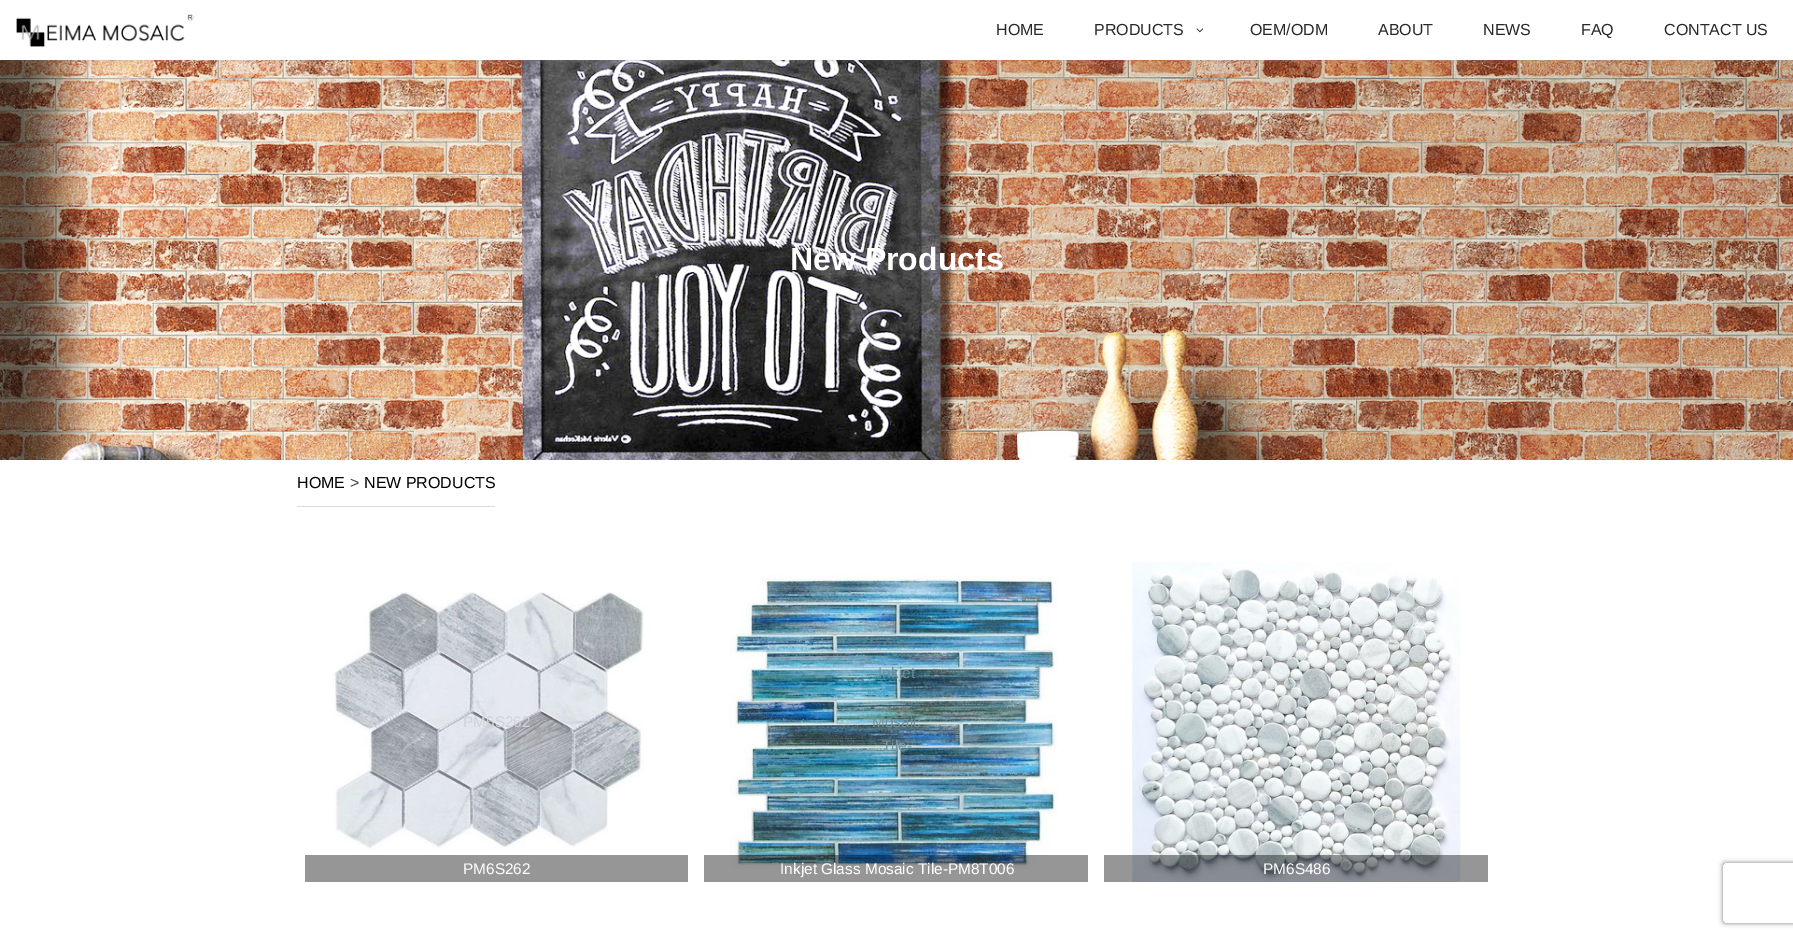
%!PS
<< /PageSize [1793 937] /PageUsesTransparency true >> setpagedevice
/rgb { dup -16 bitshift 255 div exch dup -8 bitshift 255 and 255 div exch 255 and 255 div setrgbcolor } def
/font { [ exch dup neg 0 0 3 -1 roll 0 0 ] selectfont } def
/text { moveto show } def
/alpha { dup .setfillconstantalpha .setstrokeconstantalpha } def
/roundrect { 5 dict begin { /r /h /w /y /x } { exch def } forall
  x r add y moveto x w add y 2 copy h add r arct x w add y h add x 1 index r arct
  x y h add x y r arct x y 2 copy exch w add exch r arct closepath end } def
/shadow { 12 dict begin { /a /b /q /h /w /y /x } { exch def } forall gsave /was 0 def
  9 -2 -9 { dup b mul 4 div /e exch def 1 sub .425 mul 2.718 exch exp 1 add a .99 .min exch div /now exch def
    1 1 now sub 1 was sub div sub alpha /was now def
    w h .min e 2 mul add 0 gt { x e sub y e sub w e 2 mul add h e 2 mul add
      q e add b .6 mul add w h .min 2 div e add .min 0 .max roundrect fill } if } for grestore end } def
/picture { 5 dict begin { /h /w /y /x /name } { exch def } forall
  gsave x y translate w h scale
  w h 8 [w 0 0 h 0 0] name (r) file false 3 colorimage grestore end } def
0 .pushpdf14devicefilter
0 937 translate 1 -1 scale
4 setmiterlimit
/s1 { /LiberationSans-Regular 16 font 16#282828 rgb } def
/s2 { /LiberationSans-Bold 32 font 16#FFFFFF rgb } def
/s3 { /LiberationSans-Regular 16 font 16#000000 rgb } def
/s4 { /LiberationSans-Regular 16 font 16#404040 rgb } def
/s5 { /LiberationSans-Regular 15.4 font 16#CFD2D9 rgb } def
/s6 { /LiberationSans-Regular 15.4 font 16#FFFFFF rgb } def
/s7 { /LiberationSans-Regular 15.4 font 16#668F9E rgb } def
/s8 { /LiberationSans-Regular 15.4 font 16#72949D rgb } def
/s9 { /LiberationSans-Regular 15.4 font 16#7896A0 rgb } def
16#FFFFFF rgb
0 0 1793 937 rectfill
(pic3.raw) 0 60 1793 400 picture
gsave
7 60 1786 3 rectclip
16#888888 rgb
10 -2 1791 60 0 2.5 1 shadow
grestore
(pic1.raw) 16 14 178 33 picture
s1
(HOME) 996 35 text
(PRODUCTS) 1094 35 text
(pic2.raw) 1196 28 8 5 picture
(OEM/ODM) 1250 35 text
(ABOUT) 1378 35 text
(NEWS) 1483 35 text
(FAQ) 1581 35 text
(CONTACT US) 1664 35 text
s2
(New Products) 790 270 text
16#DBDBDB rgb
297 506 198 1 rectfill
s3
(HOME) 297 488 text
s4
(>) 350 488 text
s3
(NEW PRODUCTS) 364 488 text
(pic4.raw) 333 592 311 257 picture
s5
(PM6S262) 463 727 text
16#969696 rgb
305 855 383 27 rectfill
s6
(PM6S262) 463 874 text
(pic5.raw) 730 575 329 294 picture
s7
(Inkjet) 878 678 text
s8
(Mosaic) 872 727 text
s9
(Tile-) 882 751 text
0.41 alpha
16#000000 rgb
704 855 384 27 rectfill
1 alpha
s6
(Inkjet Glass Mosaic Tile-PM8T006) 780 874 text
(pic6.raw) 1132 562 329 320 picture
0.41 alpha
16#000000 rgb
1104 855 384 27 rectfill
1 alpha
s6
(PM6S486) 1263 874 text
gsave
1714 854 moveto 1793 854 lineto 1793 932 lineto 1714 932 lineto closepath 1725 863 moveto 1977 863 lineto 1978 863 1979 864 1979 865 curveto 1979 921 lineto 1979 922 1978 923 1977 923 curveto 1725 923 lineto 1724 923 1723 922 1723 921 curveto 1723 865 lineto 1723 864 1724 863 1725 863 curveto closepath eoclip newpath
16#808080 rgb
1723 863 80 60 2 2.5 1 shadow
grestore
.poppdf14devicefilter showpage
